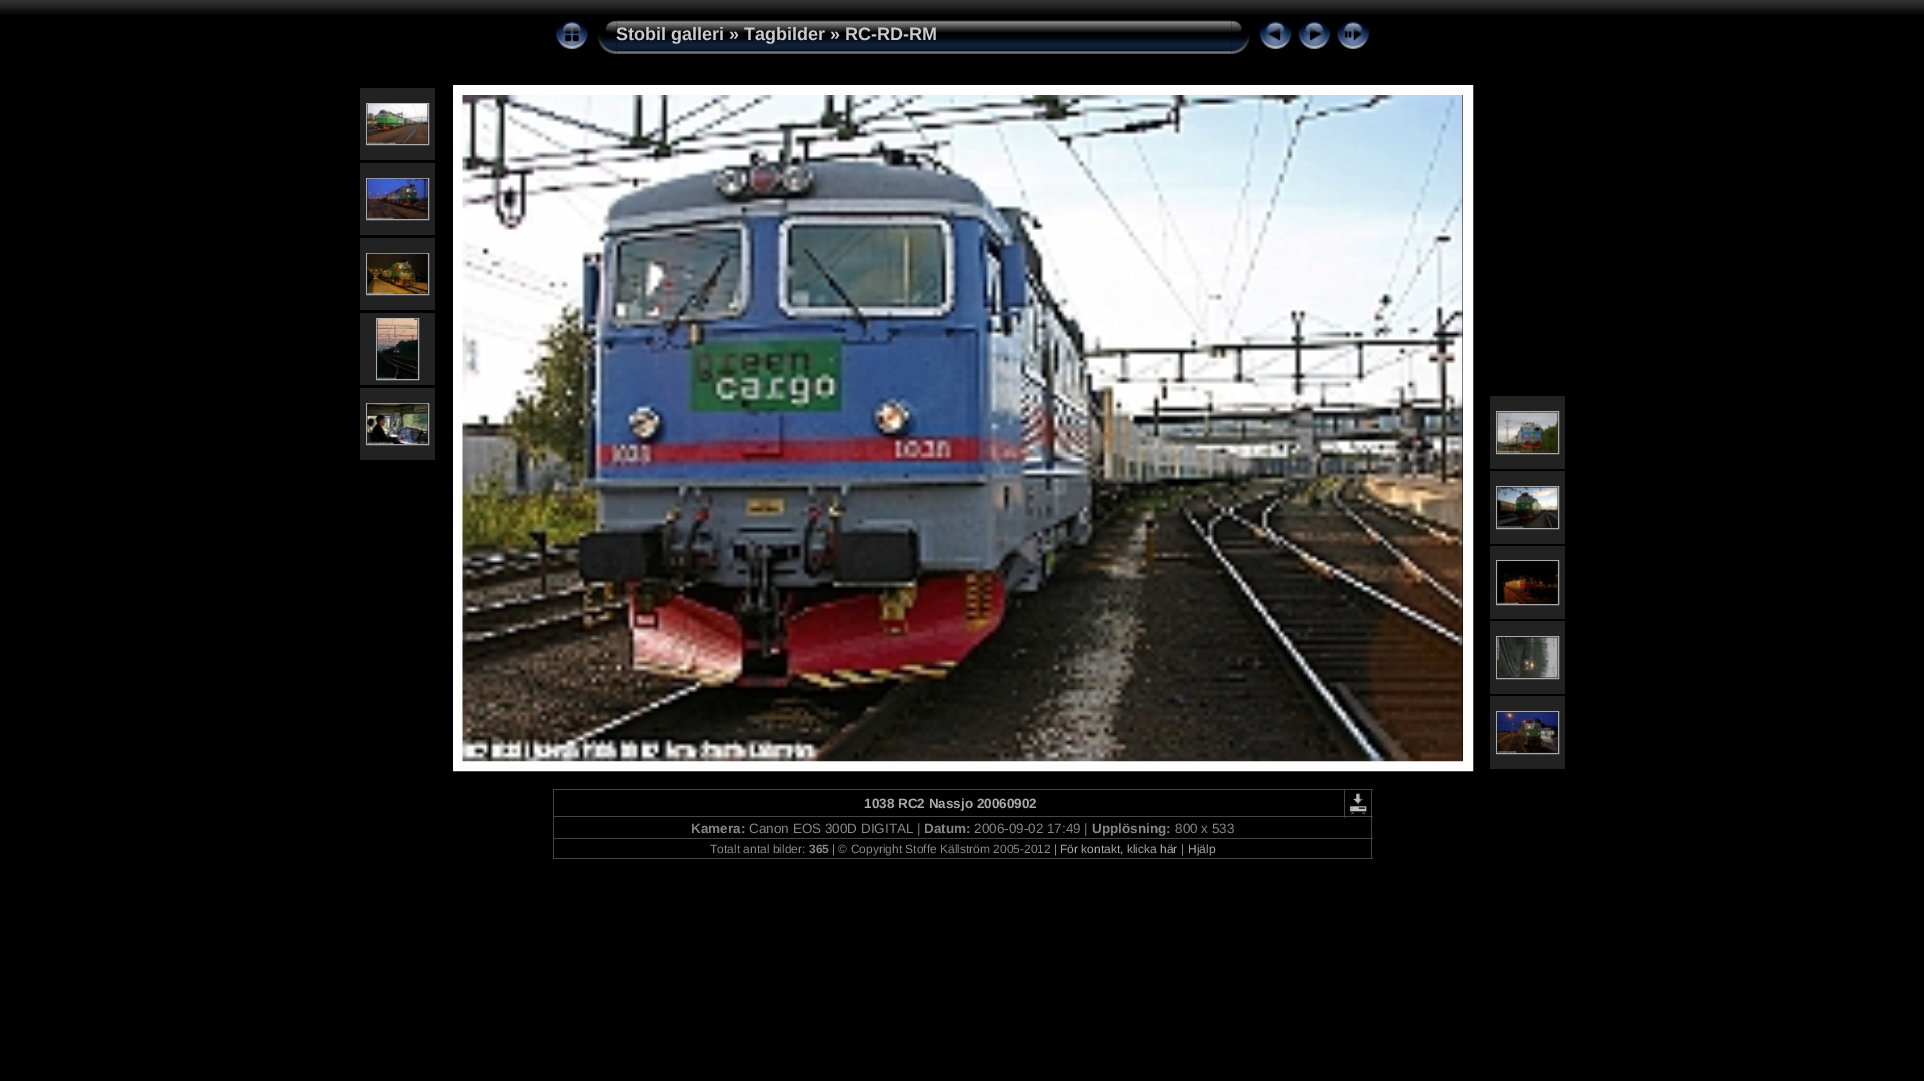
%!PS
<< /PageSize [1924 1081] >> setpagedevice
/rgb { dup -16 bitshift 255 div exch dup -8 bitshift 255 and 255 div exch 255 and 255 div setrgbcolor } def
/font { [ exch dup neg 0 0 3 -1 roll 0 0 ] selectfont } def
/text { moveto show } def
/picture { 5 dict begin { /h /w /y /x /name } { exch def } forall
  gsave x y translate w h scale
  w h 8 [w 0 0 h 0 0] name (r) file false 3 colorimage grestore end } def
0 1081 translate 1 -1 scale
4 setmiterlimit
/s1 { /LiberationSans-Bold 18 font 16#CCCCCC rgb } def
/s2 { /LiberationSans-Bold 13.5 font 16#AAAAAA rgb } def
/s3 { /LiberationSans-Bold 13.5 font 16#888888 rgb } def
/s4 { /LiberationSans-Regular 13.5 font 16#888888 rgb } def
/s5 { /LiberationSans-Regular 12 font 16#888888 rgb } def
/s6 { /LiberationSans-Bold 12 font 16#888888 rgb } def
/s7 { /LiberationSans-Regular 12 font 16#AAAAAA rgb } def
16#000000 rgb
0 0 1924 1081 rectfill
(pic1.raw) 0 0 1924 15 picture
(pic2.raw) 556 20 32 29 picture
(pic4.raw) 616 20 616 34 picture
(pic3.raw) 597 21 20 33 picture
s1
(Stobil galleri » Tagbilder » RC-RD-RM) 616 40 text
(pic5.raw) 1231 21 19 33 picture
(pic6.raw) 1259 20 33 29 picture
(pic7.raw) 1298 20 33 29 picture
(pic8.raw) 1337 20 32 29 picture
16#222222 rgb
360 88 75 72 rectfill
16#AAAAAA rgb
366.5 103.5 62 41 rectstroke
(pic9.raw) 367 103 61 41 picture
16#222222 rgb
360 163 75 72 rectfill
16#AAAAAA rgb
366.5 178.5 62 41 rectstroke
(pic10.raw) 367 178 61 41 picture
16#222222 rgb
360 238 75 72 rectfill
16#AAAAAA rgb
366.5 253.5 62 41 rectstroke
(pic11.raw) 367 253 61 41 picture
16#222222 rgb
360 313 75 72 rectfill
16#AAAAAA rgb
376.5 318.5 42 61 rectstroke
(pic12.raw) 377 318 41 61 picture
16#222222 rgb
360 388 75 72 rectfill
16#AAAAAA rgb
366.5 403.5 62 41 rectstroke
(pic13.raw) 367 403 61 41 picture
16#FFFFFF rgb
10 setlinewidth
458 90 1010 676 rectstroke
(pic14.raw) 462 95 1001 667 picture
16#222222 rgb
1490 396 75 73 rectfill
16#AAAAAA rgb
1 setlinewidth
1496.5 411.5 62 42 rectstroke
(pic15.raw) 1497 412 61 41 picture
16#222222 rgb
1490 471 75 73 rectfill
16#AAAAAA rgb
1496.5 486.5 62 42 rectstroke
(pic16.raw) 1497 487 61 41 picture
16#222222 rgb
1490 546 75 73 rectfill
16#AAAAAA rgb
1496.5 560.5 62 44 rectstroke
(pic17.raw) 1497 561 61 43 picture
16#222222 rgb
1490 621 75 73 rectfill
16#AAAAAA rgb
1496.5 636.5 62 42 rectstroke
(pic18.raw) 1497 637 61 41 picture
16#222222 rgb
1490 696 75 73 rectfill
16#AAAAAA rgb
1496.5 711.5 62 42 rectstroke
(pic19.raw) 1497 712 61 41 picture
16#444444 rgb
553 789 820 1 rectfill
1371 789 1 70 rectfill
553 858 820 1 rectfill
553 789 1 70 rectfill
s2
(1038 RC2 Nassjo 20060902) 864 808 text
16#444444 rgb
553 816 820 1 rectfill
1344 789 1 29 rectfill
(pic20.raw) 1349 793 18 21 picture
s3
(Kamera:) 691 833 text
s4
(Canon EOS 300D DIGITAL |) 749 833 text
s3
(Datum:) 924 833 text
s4
(2006-09-02 17:49 |) 974 833 text
s3
(Upplösning:) 1092 833 text
s4
(800 x 533) 1175 833 text
16#444444 rgb
553 838 820 1 rectfill
s5
(Totalt antal bilder:) 710 853 text
s6
(365) 809 853 text
s5
(| © Copyright Stoffe Källström 2005-2012 |) 832 853 text
s7
(För kontakt, klicka här) 1060 853 text
s5
(|) 1181 853 text
s7
(Hjälp) 1188 853 text
showpage
